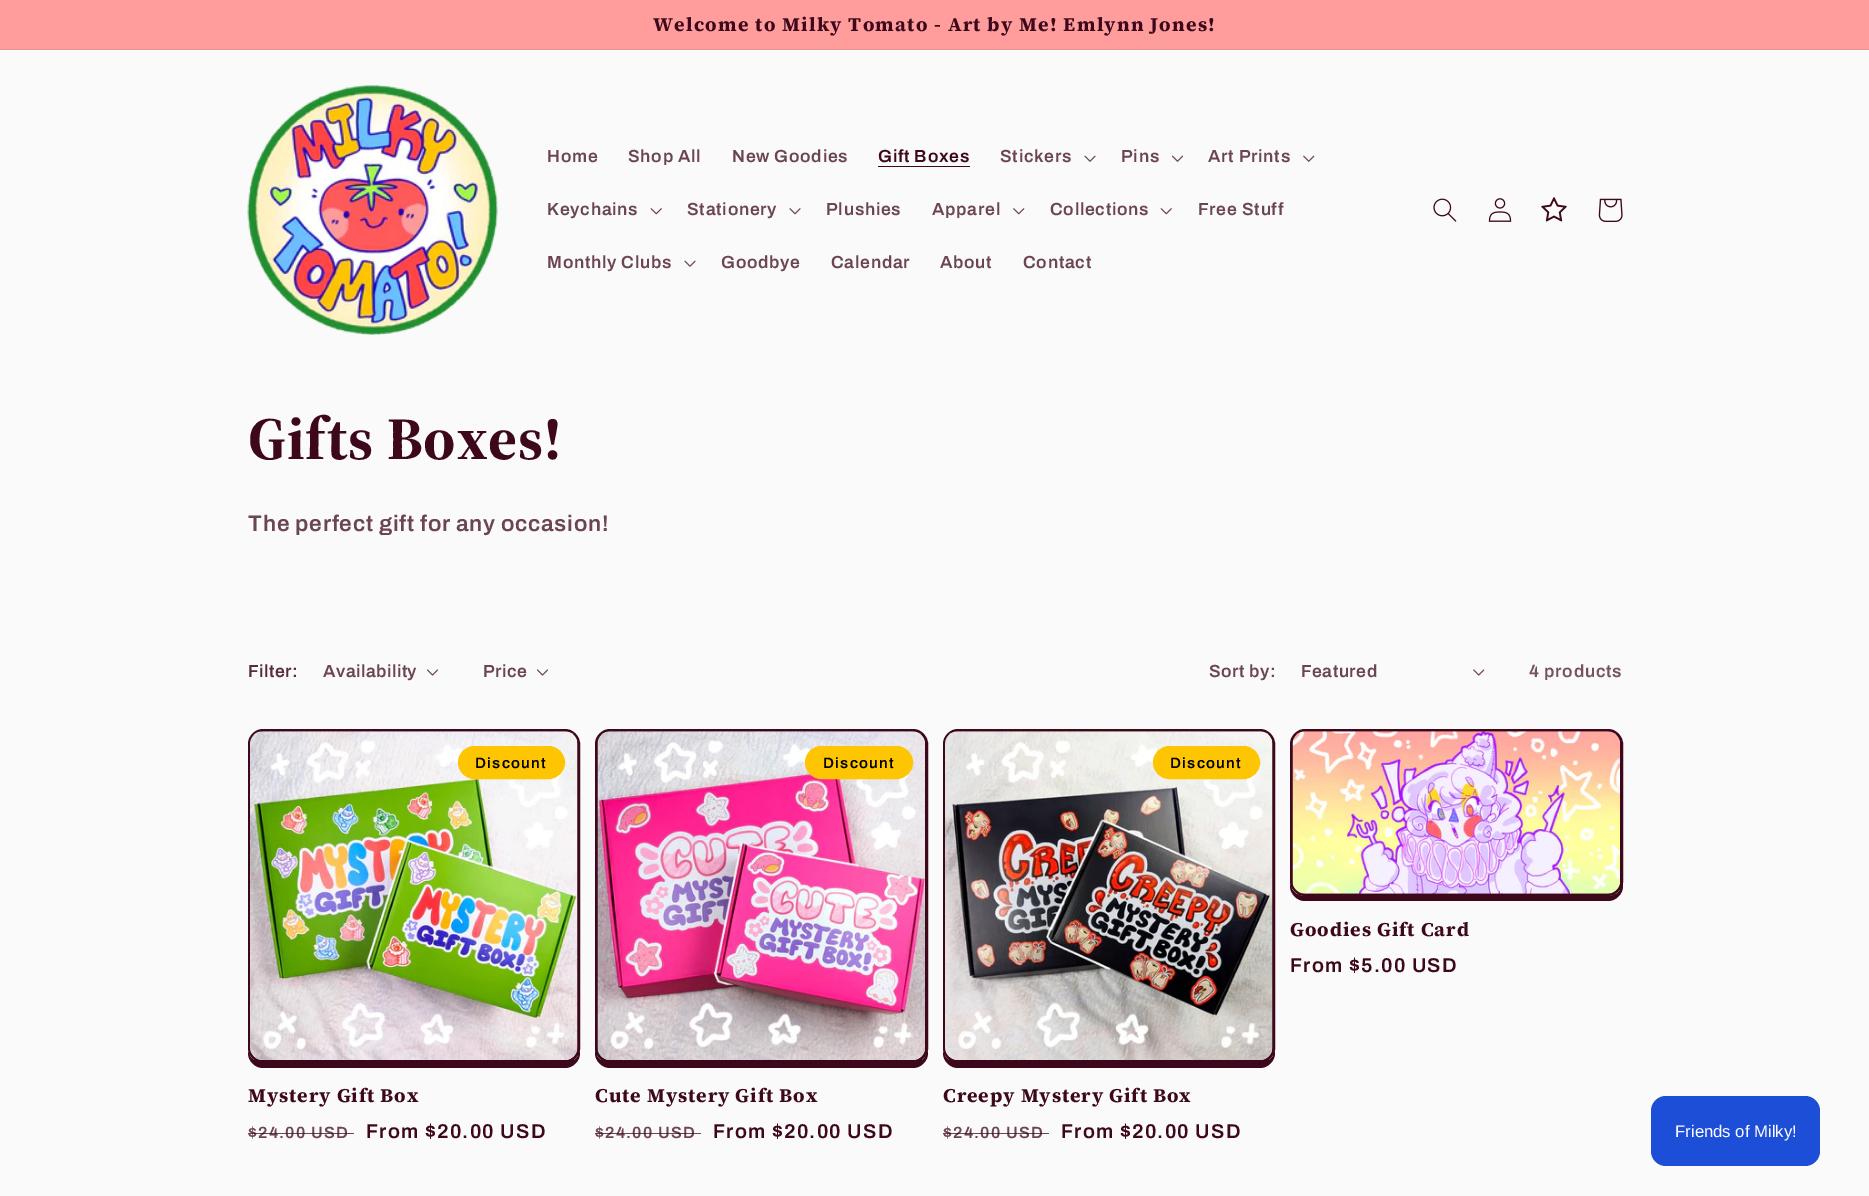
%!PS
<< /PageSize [1869 1196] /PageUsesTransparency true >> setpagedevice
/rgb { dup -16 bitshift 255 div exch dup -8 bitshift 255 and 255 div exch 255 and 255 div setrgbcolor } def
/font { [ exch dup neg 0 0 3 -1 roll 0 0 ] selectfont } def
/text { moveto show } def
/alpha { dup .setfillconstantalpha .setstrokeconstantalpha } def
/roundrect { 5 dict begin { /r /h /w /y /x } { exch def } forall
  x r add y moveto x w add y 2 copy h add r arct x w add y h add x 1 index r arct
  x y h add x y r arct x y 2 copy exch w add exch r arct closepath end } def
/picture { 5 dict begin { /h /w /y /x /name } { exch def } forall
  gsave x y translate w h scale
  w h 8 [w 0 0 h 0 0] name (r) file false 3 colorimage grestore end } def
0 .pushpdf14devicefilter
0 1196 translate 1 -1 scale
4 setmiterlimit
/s1 { /LiberationSans-Regular 16.75 font 16#FFFFFF rgb } def
16#FAFAFA rgb
0 0 1869 1196 rectfill
16#FF9D9C rgb
0 0 1869 49 rectfill
16#EF9192 rgb
0 49 1869 1 rectfill
/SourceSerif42-Bold 19.5 font
16#3D081B rgb
653 31 moveto 1.25 0 (Welcome to Milky Tomato - Art by Me! Emlynn Jones!) ashow
(pic1.raw) 247 85 251 250 picture
/Archivo-SemiBold 17.5 font
16#6C4553 rgb
547 162 moveto 0.75 0 (Home) ashow
628 162 moveto 0.75 0 (Shop All) ashow
732 162 moveto 0.75 0 (New Goodies) ashow
16#3D081B rgb
878 162 moveto 0.75 0 (Gift Boxes) ashow
878 166 92 1 rectfill
16#6C4553 rgb
1000 162 moveto 0.75 0 (Stickers) ashow
(pic2.raw) 1084 155 12 7 picture
1121 162 moveto 0.75 0 (Pins) ashow
(pic3.raw) 1171 155 13 7 picture
1208 162 moveto 0.75 0 (Art Prints) ashow
(pic4.raw) 1303 155 12 7 picture
547 215 moveto 0.75 0 (Keychains) ashow
(pic5.raw) 650 208 12 7 picture
687 215 moveto 0.75 0 (Stationery) ashow
(pic6.raw) 789 208 12 7 picture
826 215 moveto 0.75 0 (Plushies) ashow
932 215 moveto 0.75 0 (Apparel) ashow
(pic7.raw) 1013 208 12 7 picture
1050 215 moveto 0.75 0 (Collections) ashow
(pic5.raw) 1160 208 12 7 picture
1198 215 moveto 0.75 0 (Free Stuff) ashow
547 268 moveto 0.75 0 (Monthly Clubs) ashow
(pic2.raw) 684 260 12 7 picture
721 268 moveto 0.75 0 (Goodbye) ashow
831 268 moveto 0.75 0 (Calendar) ashow
940 268 moveto 0.75 0 (About) ashow
1023 268 moveto 0.75 0 (Contact) ashow
(pic8.raw) 1433 198 24 24 picture
(pic9.raw) 1488 198 24 24 picture
(pic10.raw) 1541 197 26 25 picture
(pic11.raw) 1598 198 25 24 picture
/SourceSerif4-Bold 60 font
16#3D081B rgb
248 459 moveto 0.9 0 (Gifts Boxes!) ashow
/Archivo-SemiBold 22.5 font
16#6C4553 rgb
248 531 moveto 0.75 0 (The perfect gift for any occasion!) ashow
/Archivo-SemiBold 17.5 font
16#592C3C rgb
248 677 moveto 0.5 0 (Filter:) ashow
16#6C4553 rgb
323 677 moveto 0.5 0 (Availability) ashow
(pic12.raw) 427 669 11 7 picture
483 677 moveto 0.5 0 (Price) ashow
(pic12.raw) 537 669 11 7 picture
1209 677 moveto 0.5 0 (Sort by:) ashow
1301 677 moveto 0.5 0 (Featured) ashow
(pic13.raw) 1473 669 12 7 picture
16#76515E rgb
1529 677 moveto 0.75 0 (4 products) ashow
16#3D081B rgb
248 1051 moveto 248 1053 lineto 248 1061 255 1068 263 1068 curveto 565 1068 lineto 573 1068 580 1061 580 1053 curveto 580 1048 lineto 580 1056 573 1062 565 1062 curveto 262 1062 lineto 256 1062 250 1058 248 1051 curveto closepath fill
3 setlinewidth
249.5 730.5 329 331 13.5 roundrect stroke
(pic14.raw) 250 731 328 329 picture
16#FEC503 rgb
458.5 746.5 106 32 16 roundrect gsave fill grestore
1 setlinewidth
stroke
/Archivo-SemiBold 15 font
16#000000 rgb
475 768 moveto 1.25 0 (Discount) ashow
/SourceSerif42-Bold 19.5 font
16#3D081B rgb
248 1102 moveto 0.9 0 (Mystery Gift Box) ashow
/Archivo-SemiBold 16.25 font
16#6C4553 rgb
248 1138 moveto 1.25 0 ($24.00 USD) ashow
0.75 alpha
16#3D081B rgb
248 1133 106 1 rectfill
/Archivo-SemiBold 20 font
1 alpha
366 1138 moveto 1.25 0 (From $20.00 USD) ashow
595 1048 moveto 595 1053 lineto 595 1061 602 1068 610 1068 curveto 913 1068 lineto 921 1068 928 1061 928 1053 curveto 928 749 lineto 928 745 lineto 928 1048 lineto 928 1056 921 1062 912 1062 curveto 610 1062 lineto 602 1062 595 1056 595 1048 curveto closepath fill
16#FAFAFA rgb
596.5 730.5 330 331 13.5 roundrect gsave fill grestore
16#3D081B rgb
3 setlinewidth
stroke
(pic15.raw) 597 731 328 329 picture
16#FEC503 rgb
805.5 746.5 107 32 16 roundrect gsave fill grestore
1 setlinewidth
stroke
/Archivo-SemiBold 15 font
16#000000 rgb
823 768 moveto 1.25 0 (Discount) ashow
/SourceSerif42-Bold 19.5 font
16#3D081B rgb
595 1102 moveto 0.9 0 (Cute Mystery Gift Box) ashow
/Archivo-SemiBold 16.25 font
16#6C4553 rgb
595 1138 moveto 1.25 0 ($24.00 USD) ashow
0.75 alpha
16#3D081B rgb
595 1133 106 1 rectfill
/Archivo-SemiBold 20 font
1 alpha
713 1138 moveto 1.25 0 (From $20.00 USD) ashow
943 1051 moveto 943 1053 lineto 943 1061 950 1068 958 1068 curveto 1260 1068 lineto 1268 1068 1275 1061 1275 1053 curveto 1275 1048 lineto 1275 1056 1268 1062 1260 1062 curveto 958 1062 lineto 951 1062 945 1058 943 1051 curveto closepath fill
3 setlinewidth
944.5 730.5 329 331 13.5 roundrect stroke
(pic16.raw) 945 731 328 329 picture
16#FEC503 rgb
1153.5 746.5 106 32 16 roundrect gsave fill grestore
1 setlinewidth
stroke
/Archivo-SemiBold 15 font
16#000000 rgb
1170 768 moveto 1.25 0 (Discount) ashow
/SourceSerif42-Bold 19.5 font
16#3D081B rgb
943 1102 moveto 0.9 0 (Creepy Mystery Gift Box) ashow
/Archivo-SemiBold 16.25 font
16#6C4553 rgb
943 1138 moveto 1.25 0 ($24.00 USD) ashow
0.75 alpha
16#3D081B rgb
943 1133 106 1 rectfill
/Archivo-SemiBold 20 font
1 alpha
1061 1138 moveto 1.25 0 (From $20.00 USD) ashow
1290 881 moveto 1290 886 lineto 1290 894 1297 901 1305 901 curveto 1608 901 lineto 1616 901 1623 894 1623 886 curveto 1623 749 lineto 1622 745 lineto 1622 881 lineto 1622 890 1616 896 1608 896 curveto 1305 896 lineto 1297 896 1290 890 1290 881 curveto closepath fill
3 setlinewidth
1291.5 730.5 330 164 13.5 roundrect stroke
(pic17.raw) 1292 731 328 163 picture
/SourceSerif42-Bold 19.5 font
1290 936 moveto 0.9 0 (Goodies Gift Card) ashow
/Archivo-SemiBold 20 font
1290 972 moveto 1.25 0 (From $5.00 USD) ashow
16#1D4ED8 rgb
1651 1096 169 70 15 roundrect fill
s1
(Friends of Milky!) 1675 1137 text
.poppdf14devicefilter showpage
